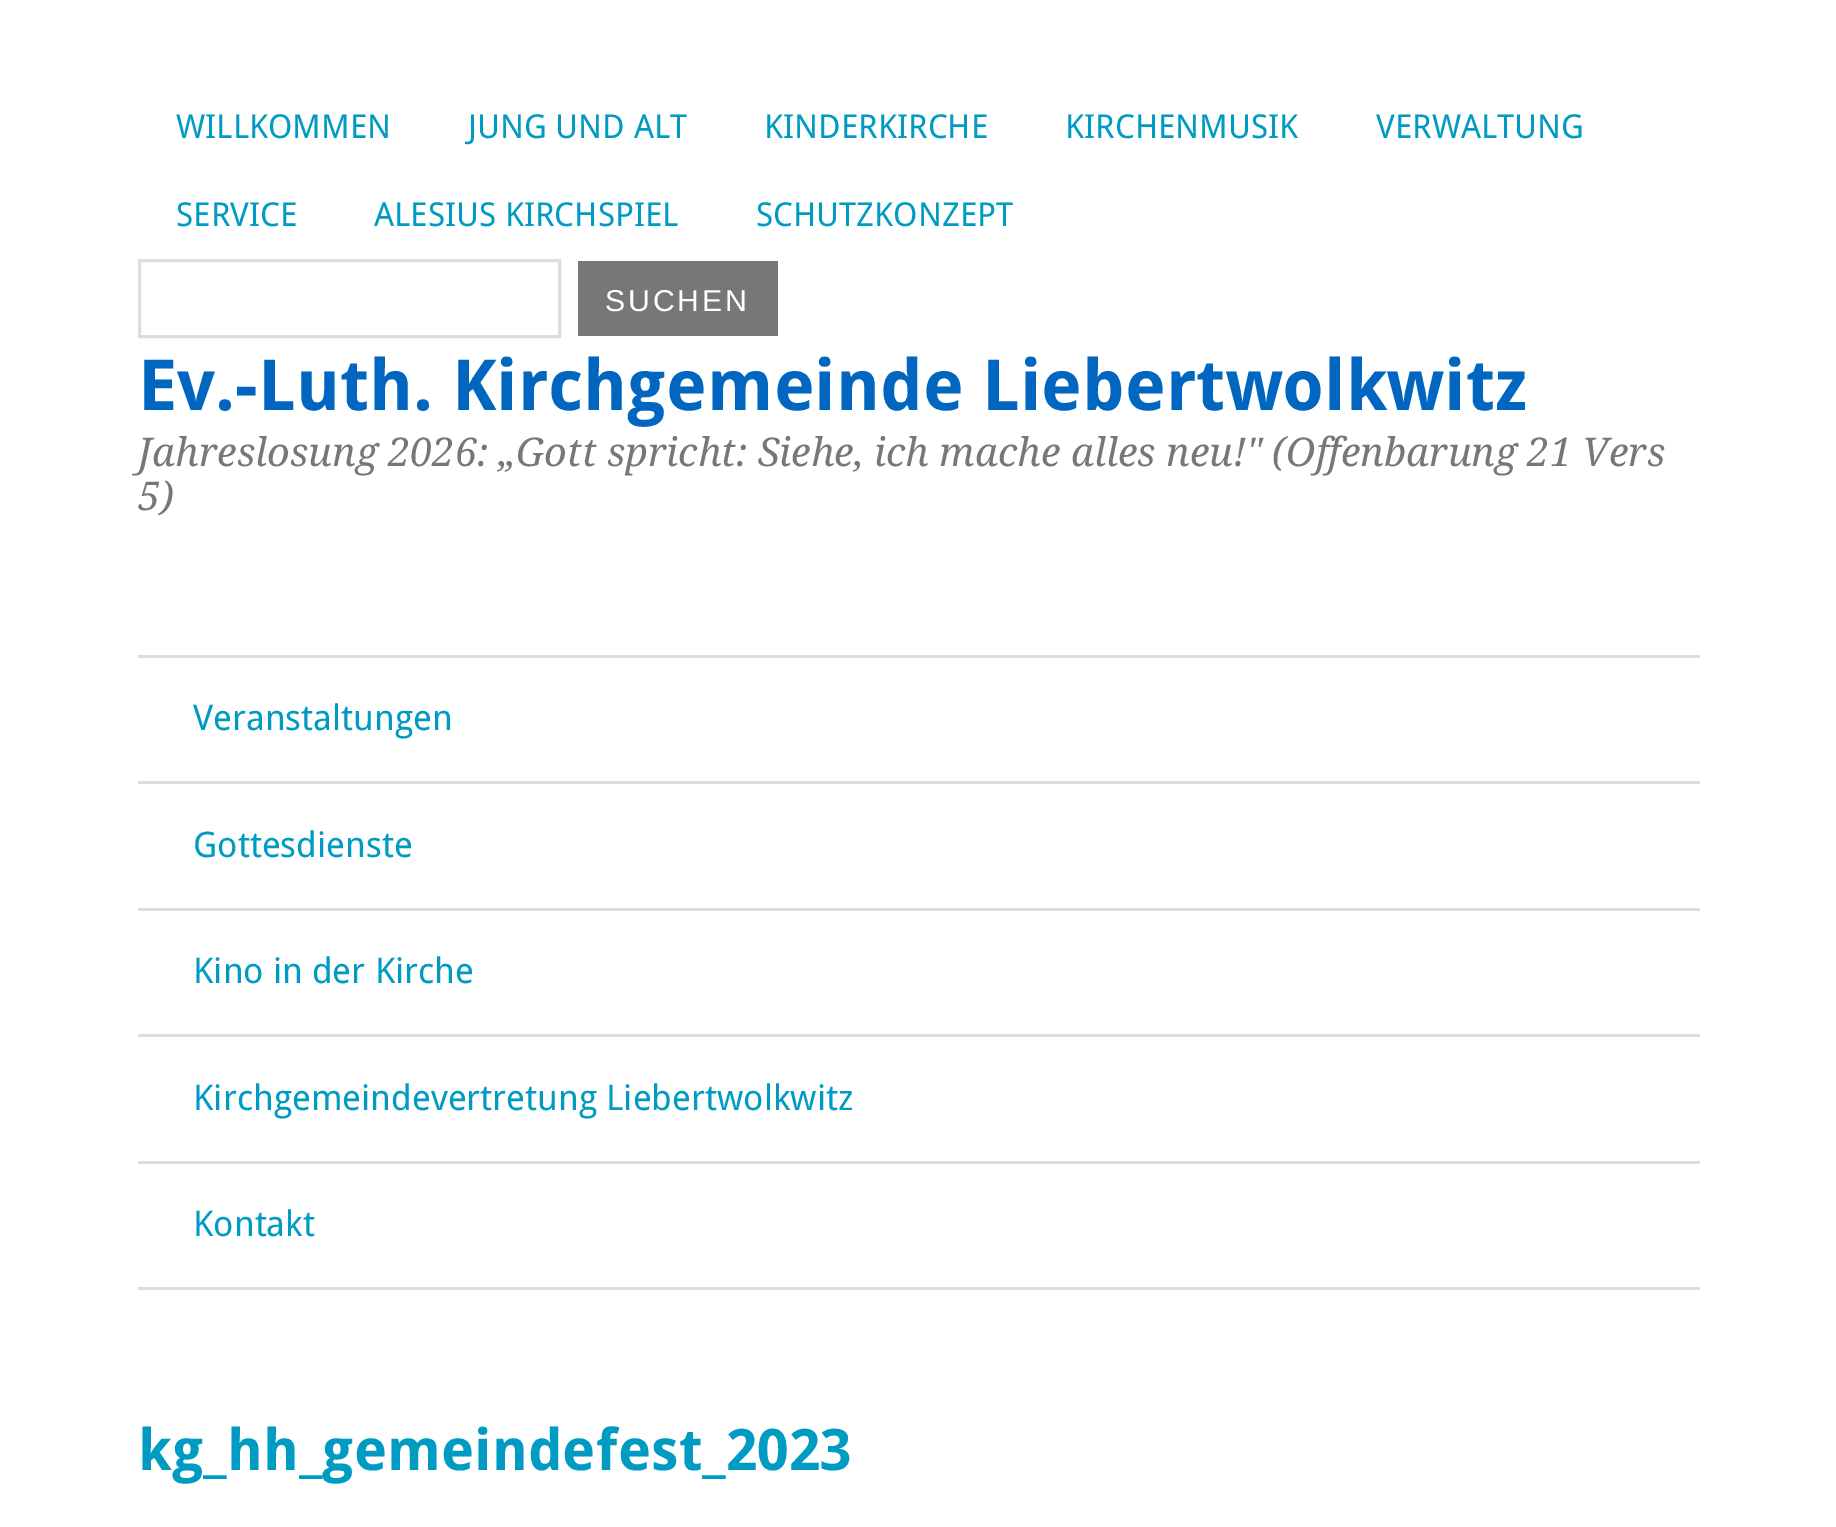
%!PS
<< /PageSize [1836 1527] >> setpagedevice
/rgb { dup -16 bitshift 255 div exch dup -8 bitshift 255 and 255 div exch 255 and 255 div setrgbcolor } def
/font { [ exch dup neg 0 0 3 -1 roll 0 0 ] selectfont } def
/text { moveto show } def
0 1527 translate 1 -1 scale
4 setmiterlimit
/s1 { /DroidSans-Regular 33 font 16#009BC2 rgb } def
/s2 { /DroidSans-Bold 70.4 font 16#0066BF rgb } def
/s3 { /DroidSerif-Italic 39.6 font 16#777777 rgb } def
/s4 { /DroidSans-Regular 35.25 font 16#009BC2 rgb } def
/s5 { /DroidSans-Bold 57.25 font 16#009BC2 rgb } def
16#FFFFFF rgb
0 0 1836 1527 rectfill
s1
(WILLKOMMEN) 176 138 text
(JUNG UND ALT) 468 138 text
(KINDERKIRCHE) 764 138 text
(KIRCHENMUSIK) 1065 138 text
(VERWALTUNG) 1376 138 text
(SERVICE) 176 226 text
(ALESIUS KIRCHSPIEL) 374 226 text
(SCHUTZKONZEPT) 756 226 text
16#DDDDDD rgb
3 setlinewidth
139.5 260.5 420 76 rectstroke
16#777777 rgb
578 261 200 75 rectfill
/LiberationSans-Regular 30.25 font
16#FFFFFF rgb
605 311 moveto 2.75 0 (SUCHEN) ashow
s2
(Ev.-Luth. Kirchgemeinde Liebertwolkwitz) 138 410 text
s3
(Jahreslosung 2026: „Gott spricht: Siehe, ich mache alles neu!" \(Offenbarung 21 Vers) 138 466 text
(5\)) 138 510 text
16#DDDDDD rgb
138 655 1562 3 rectfill
138 781 1562 3 rectfill
s4
(Veranstaltungen) 193 730 text
16#DDDDDD rgb
138 908 1562 3 rectfill
s4
(Gottesdienste) 193 857 text
16#DDDDDD rgb
138 1034 1562 3 rectfill
s4
(Kino in der Kirche) 193 983 text
16#DDDDDD rgb
138 1161 1562 3 rectfill
s4
(Kirchgemeindevertretung Liebertwolkwitz) 193 1110 text
(Kontakt) 193 1236 text
16#DDDDDD rgb
138 1287 1562 3 rectfill
s5
(kg_hh_gemeindefest_2023) 138 1470 text
showpage
